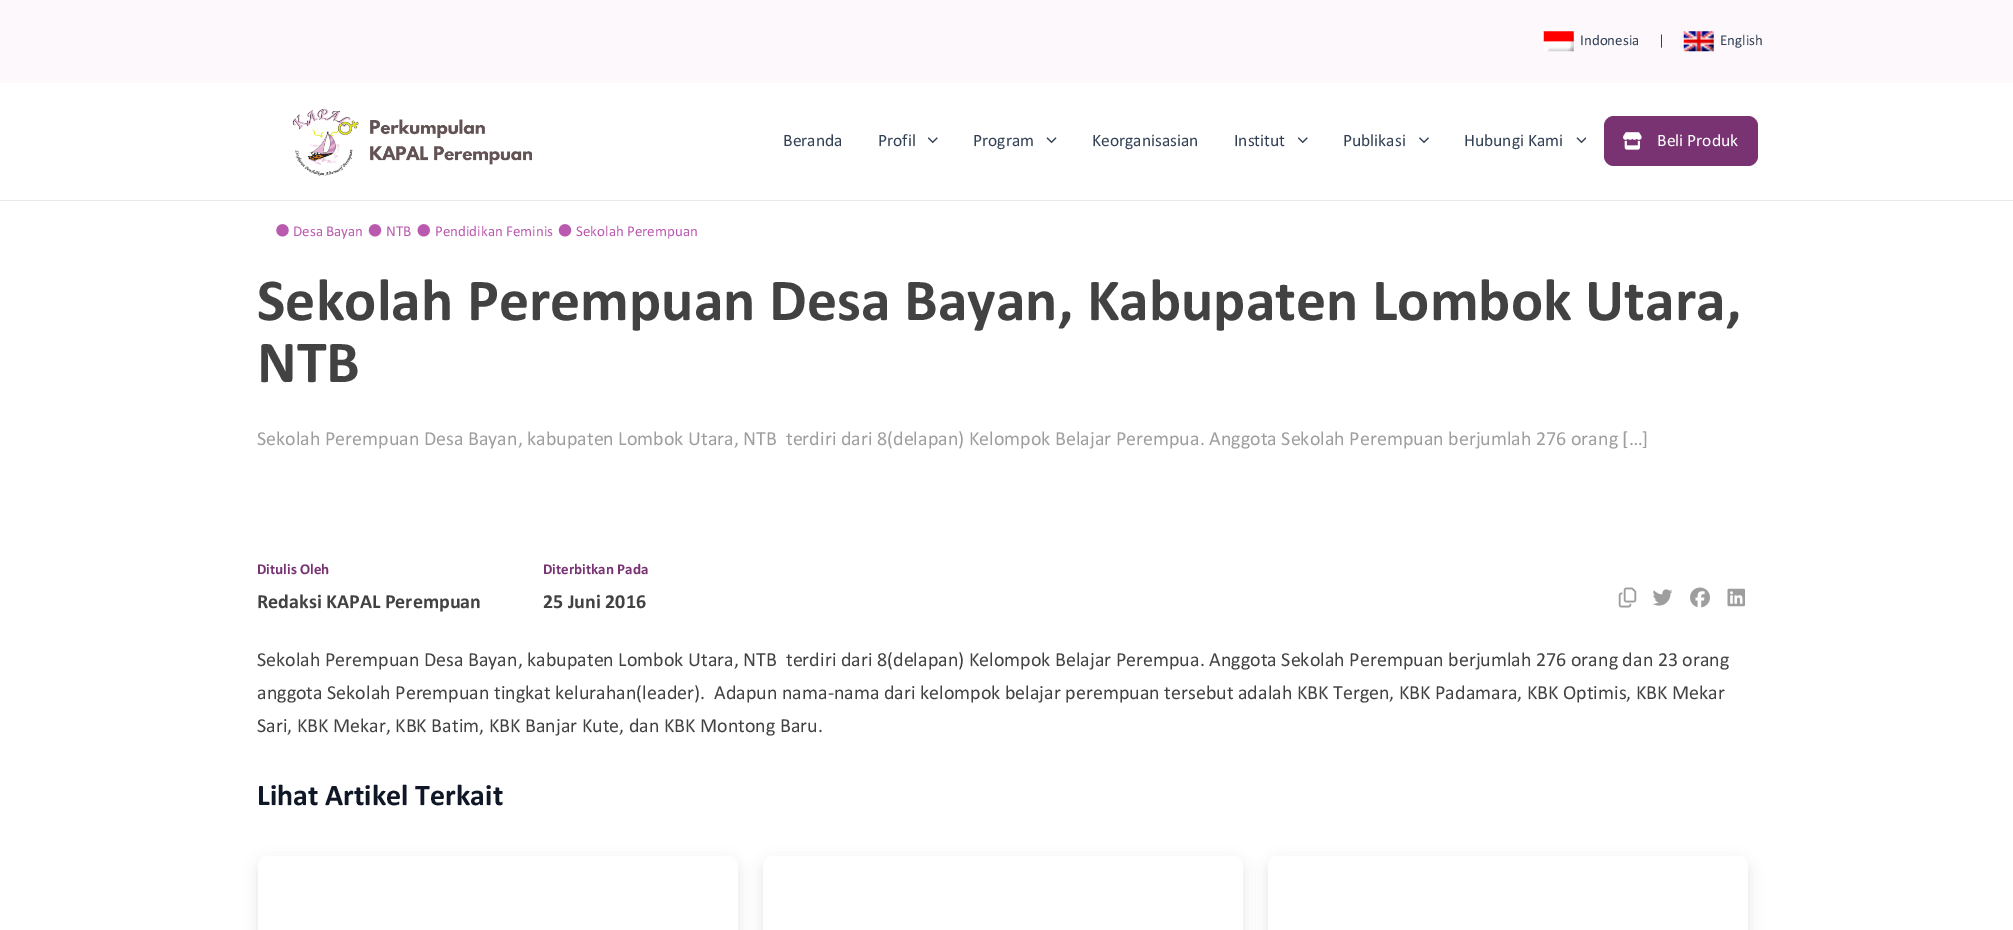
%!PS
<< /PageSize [2013 930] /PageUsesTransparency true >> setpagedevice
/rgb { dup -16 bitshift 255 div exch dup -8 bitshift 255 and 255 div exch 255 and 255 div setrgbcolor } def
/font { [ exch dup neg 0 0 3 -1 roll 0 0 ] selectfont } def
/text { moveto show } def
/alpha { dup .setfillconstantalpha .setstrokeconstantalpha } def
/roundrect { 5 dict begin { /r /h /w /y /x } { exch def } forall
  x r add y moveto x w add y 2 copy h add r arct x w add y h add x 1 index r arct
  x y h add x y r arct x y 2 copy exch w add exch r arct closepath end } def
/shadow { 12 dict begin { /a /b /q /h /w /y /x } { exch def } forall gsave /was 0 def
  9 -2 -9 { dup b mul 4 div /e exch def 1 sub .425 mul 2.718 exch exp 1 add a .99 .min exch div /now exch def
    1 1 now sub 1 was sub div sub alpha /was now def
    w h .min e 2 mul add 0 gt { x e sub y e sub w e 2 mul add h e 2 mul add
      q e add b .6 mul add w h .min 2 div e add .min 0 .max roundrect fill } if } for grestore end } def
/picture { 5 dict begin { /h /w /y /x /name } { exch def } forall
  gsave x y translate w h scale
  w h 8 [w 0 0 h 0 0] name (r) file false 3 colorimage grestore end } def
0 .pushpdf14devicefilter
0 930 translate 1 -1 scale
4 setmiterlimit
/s1 { /Calibri-Regular 15 font 16#334155 rgb } def
/s2 { /Calibri-Regular 17.5 font 16#334155 rgb } def
/s3 { /Calibri-Regular 17.5 font 16#FFFFFF rgb } def
/s4 { /Calibri-Regular 15 font 16#BA5AAF rgb } def
/s5 { /Calibri-Bold 60 font 16#424242 rgb } def
/s6 { /Calibri-Regular 20 font 16#9E9E9E rgb } def
/s7 { /Calibri-Bold 15 font 16#7A3372 rgb } def
/s8 { /Calibri-Bold 20 font 16#424242 rgb } def
/s9 { /Calibri-Regular 20 font 16#424242 rgb } def
/s10 { /Calibri-Bold 30 font 16#101828 rgb } def
16#FFFFFF rgb
0 0 2013 930 rectfill
16#FCF8FC rgb
0 0 2013 83 rectfill
(pic1.raw) 1543 31 31 21 picture
s1
(Indonesia) 1580 45 text
(|) 1658 45 text
(pic2.raw) 1683 31 31 21 picture
(English) 1720 45 text
16#EAEAEA rgb
0 200 2013 1 rectfill
(pic3.raw) 292 109 240 67 picture
s2
(Beranda) 783 146 text
(Profil) 878 146 text
(pic4.raw) 928 137 10 7 picture
(Program) 973 146 text
(pic5.raw) 1046 137 11 7 picture
(Keorganisasian) 1092 146 text
(Institut) 1234 146 text
(pic4.raw) 1298 137 10 7 picture
(Publikasi) 1343 146 text
(pic6.raw) 1419 137 10 7 picture
(Hubungi Kami) 1464 146 text
(pic7.raw) 1576 137 10 7 picture
16#7A3372 rgb
1604 116 154 50 10 roundrect fill
(pic8.raw) 1623 132 19 18 picture
s3
(Beli Produk) 1657 146 text
(pic9.raw) 276 224 13 13 picture
s4
(Desa Bayan) 293 236 text
(pic10.raw) 368 224 14 13 picture
(NTB) 386 236 text
(pic11.raw) 417 224 13 13 picture
(Pendidikan Feminis) 435 236 text
(pic10.raw) 558 224 14 13 picture
(Sekolah Perempuan) 576 236 text
s5
(Sekolah Perempuan Desa Bayan, Kabupaten Lombok Utara,) 257 320 text
(NTB) 257 382 text
s6
(Sekolah Perempuan Desa Bayan, kabupaten Lombok Utara, NTB  terdiri dari 8\(delapan\) Kelompok Belajar Perempua. Anggota Sekolah Perempuan berjumlah 276 orang […]) 257 445 text
s7
(Ditulis Oleh) 257 574 text
s8
(Redaksi KAPAL Perempuan) 257 608 text
s7
(Diterbitkan Pada) 543 574 text
s8
(25 Juni 2016) 543 608 text
(pic12.raw) 1618 587 19 21 picture
(pic13.raw) 1652 589 21 17 picture
(pic14.raw) 1690 587 20 21 picture
(pic15.raw) 1727 588 18 19 picture
s9
(Sekolah Perempuan Desa Bayan, kabupaten Lombok Utara, NTB  terdiri dari 8\(delapan\) Kelompok Belajar Perempua. Anggota Sekolah Perempuan berjumlah 276 orang dan 23 orang) 257 666 text
(anggota Sekolah Perempuan tingkat kelurahan\(leader\).  Adapun nama-nama dari kelompok belajar perempuan tersebut adalah KBK Tergen, KBK Padamara, KBK Optimis, KBK Mekar) 257 699 text
(Sari, KBK Mekar, KBK Batim, KBK Banjar Kute, dan KBK Montong Baru.) 257 732 text
s10
(Lihat Artikel Terkait) 257 805 text
16#000000 rgb
258 861 480 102 10 7.5 0.1 shadow
16#FFFFFF rgb
258 856 480 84 10 roundrect fill
16#000000 rgb
763 861 480 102 10 7.5 0.1 shadow
16#FFFFFF rgb
763 856 480 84 10 roundrect fill
16#000000 rgb
1268 861 480 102 10 7.5 0.1 shadow
16#FFFFFF rgb
1268 856 480 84 10 roundrect fill
.poppdf14devicefilter showpage
